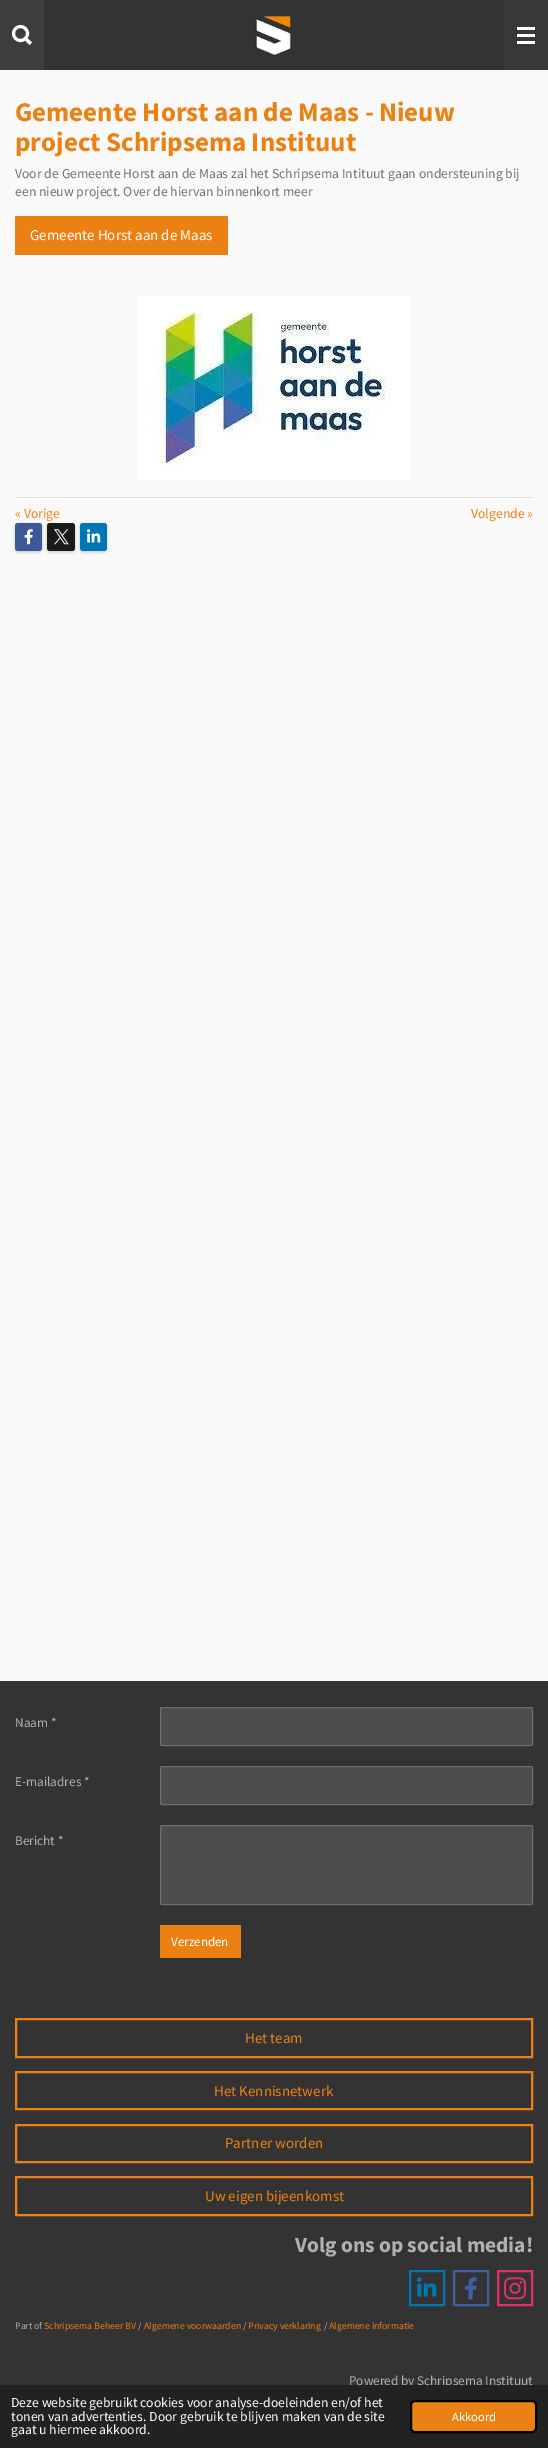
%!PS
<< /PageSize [548 2448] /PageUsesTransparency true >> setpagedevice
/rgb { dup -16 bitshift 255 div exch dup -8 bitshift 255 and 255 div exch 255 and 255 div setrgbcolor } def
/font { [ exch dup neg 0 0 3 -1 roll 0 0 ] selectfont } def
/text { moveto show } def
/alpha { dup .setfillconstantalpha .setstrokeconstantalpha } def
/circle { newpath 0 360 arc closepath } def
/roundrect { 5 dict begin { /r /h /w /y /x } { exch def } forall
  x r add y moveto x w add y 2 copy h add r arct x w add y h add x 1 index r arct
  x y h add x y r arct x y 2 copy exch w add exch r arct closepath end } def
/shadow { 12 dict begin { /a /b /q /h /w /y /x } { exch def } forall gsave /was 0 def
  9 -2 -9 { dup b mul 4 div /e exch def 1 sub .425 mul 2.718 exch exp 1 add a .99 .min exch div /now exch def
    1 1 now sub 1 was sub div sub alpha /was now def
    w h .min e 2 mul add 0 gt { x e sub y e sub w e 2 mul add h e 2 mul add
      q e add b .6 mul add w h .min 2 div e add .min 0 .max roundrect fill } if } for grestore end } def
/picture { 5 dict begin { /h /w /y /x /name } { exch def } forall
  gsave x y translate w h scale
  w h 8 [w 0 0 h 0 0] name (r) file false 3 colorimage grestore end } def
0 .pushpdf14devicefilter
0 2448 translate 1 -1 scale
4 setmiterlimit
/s1 { /SourceSansPro-Bold 27 font 16#EB8113 rgb } def
/s2 { /SourceSansPro-Regular 13.7 font 16#707070 rgb } def
/s3 { /SourceSansPro-Regular 15 font 16#FFFFFF rgb } def
/s4 { /SourceSansPro-Regular 13.7 font 16#EB8113 rgb } def
/s5 { /SourceSansPro-Regular 13.25 font 16#B1B0AC rgb } def
/s6 { /SourceSansPro-Regular 13 font 16#FFFFFF rgb } def
/s7 { /SourceSansPro-Regular 15 font 16#EB8113 rgb } def
/s8 { /SourceSansPro-Bold 21.5 font 16#B1B0AC rgb } def
/s9 { /SourceSansPro-Regular 9.75 font 16#B1B0AC rgb } def
/s10 { /SourceSansPro-Regular 9.75 font 16#EB8113 rgb } def
/s11 { /SourceSansPro-Regular 13.7 font 16#FFFFFF rgb } def
/s12 { /SourceSansPro-Regular 12.5 font 16#FFFFFF rgb } def
16#333333 rgb
0 0 548 2448 rectfill
16#3D3D3D rgb
0 0 44 70 rectfill
16#FFFFFF rgb
3 setlinewidth
20.5 33.5 7 circle stroke
25.5 36.5 moveto 32 42.5 lineto 29.5 45 lineto 23.5 38.5 lineto closepath fill
(pic1.raw) 255 16 36 40 picture
16#383838 rgb
504 0 44 70 rectfill
16#FFFFFF rgb
517 34 18 3 rectfill
517 27 18 3 rectfill
517 41 18 3 rectfill
16#F9F9F9 rgb
0 70 548 1611 rectfill
s1
(Gemeente Horst aan de Maas - Nieuw) 15 121 text
(project Schripsema Instituut) 15 151 text
s2
(Voor de Gemeente Horst aan de Maas zal het Schripsema Intituut gaan ondersteuning bij) 15 178 text
(een nieuw project. Over de hiervan binnenkort meer) 15 196 text
16#EB8113 rgb
15 216 213 39 rectfill
s3
(Gemeente Horst aan de Maas) 30 240 text
(pic2.raw) 137 296 274 184 picture
16#DEDEDE rgb
15 497 518 1 rectfill
s4
(« Vorige) 15 518 text
(Volgende ») 471 518 text
16#000000 rgb
15 524 27 28 3 1.5 0.2 shadow
16#3B5998 rgb
15 523 27 28 3 roundrect fill
(pic3.raw) 24 529 9 16 picture
16#000000 rgb
47 524 28 28 3 1.5 0.2 shadow
16#1A1A1A rgb
47 523 28 28 3 roundrect fill
(pic4.raw) 54 529 15 16 picture
16#000000 rgb
80 524 27 28 3 1.5 0.2 shadow
16#0077B5 rgb
80 523 27 28 3 roundrect fill
(pic5.raw) 87 529 14 14 picture
s5
(Naam *) 15 1727 text
16#4D4D4D rgb
160 1707 373 39 2 roundrect fill
0.5 alpha
16#8C8C8C rgb
1 setlinewidth
160.5 1707.5 372 38 1.5 roundrect stroke
1 alpha
s5
(E-mailadres *) 15 1786 text
16#4D4D4D rgb
160 1766 373 39 2 roundrect fill
0.5 alpha
16#8C8C8C rgb
160.5 1766.5 372 38 1.5 roundrect stroke
1 alpha
s5
(Bericht *) 15 1845 text
16#4D4D4D rgb
160 1825 373 80 2 roundrect fill
0.5 alpha
16#8C8C8C rgb
160.5 1825.5 372 79 1.5 roundrect stroke
1 alpha
16#EB8113 rgb
160 1925 81 33 rectfill
s6
(Verzenden) 171 1946 text
16#EB8113 rgb
2 setlinewidth
16 2019 516 38 rectstroke
s7
(Het team) 245 2043 text
16 2072 516 37 rectstroke
(Het Kennisnetwerk) 214 2096 text
16 2125 516 37 rectstroke
(Partner worden) 225 2148 text
16 2177 516 38 rectstroke
(Uw eigen bijeenkomst) 205 2201 text
s8
(Volg ons op social media!) 295 2252 text
16#0077B5 rgb
410 2271 34 34 rectstroke
(pic6.raw) 417 2277 20 20 picture
16#3F5FA3 rgb
454 2271 34 34 rectstroke
(pic7.raw) 465 2277 12 23 picture
16#E1306C rgb
498 2271 34 34 rectstroke
(pic8.raw) 504 2277 22 23 picture
s9
(Part of) 15 2329 text
s10
(Schripsema Beheer BV) 44 2329 text
s9
(/) 138 2329 text
s10
(Algemene voorwaarden) 144 2329 text
s9
(/) 243 2329 text
s10
(Privacy verklaring) 248 2329 text
s9
(/) 324 2329 text
s10
(Algemene informatie) 329 2329 text
s5
(Powered by Schripsema Instituut) 349 2385 text
16#222222 rgb
0 2385 548 63 rectfill
s11
(Deze website gebruikt cookies voor analyse-doeleinden en/of het) 11 2407 text
(tonen van advertenties. Door gebruik te blijven maken van de site) 11 2421 text
(gaat u hiermee akkoord.) 11 2434 text
16#EB8113 rgb
411 2401 125 31 4 roundrect gsave fill grestore
16#000000 rgb
stroke
s12
(Akkoord) 452 2421 text
.poppdf14devicefilter showpage
